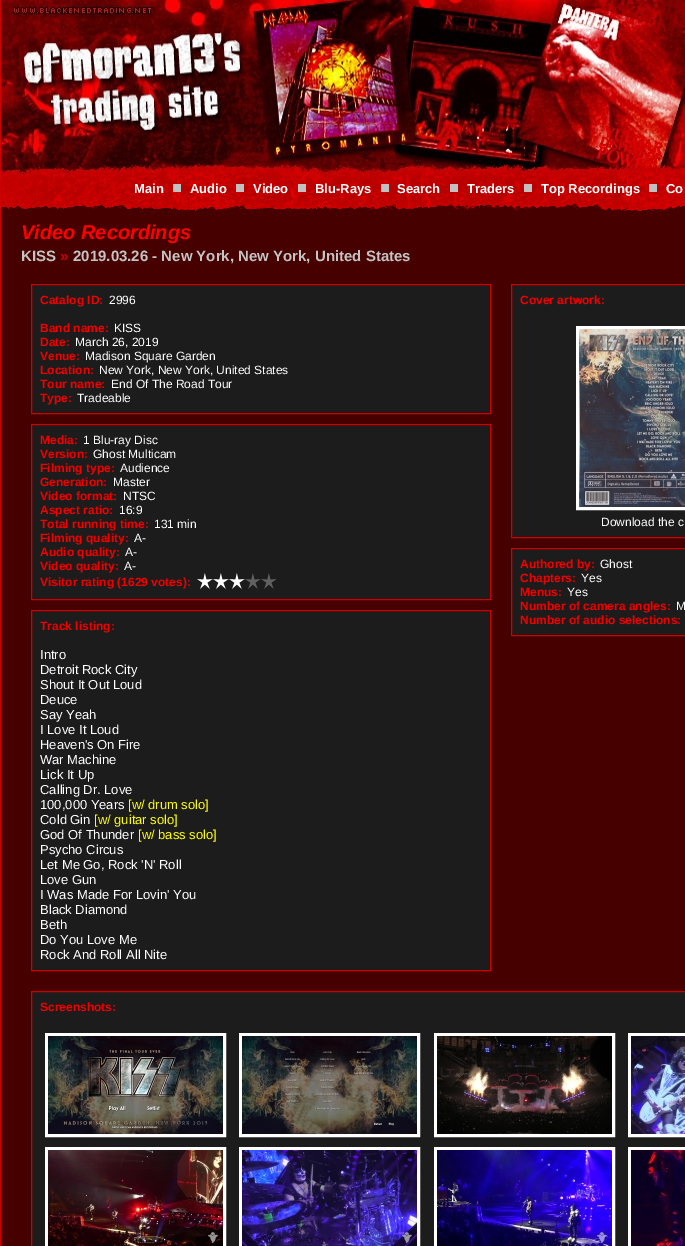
%!PS
<< /PageSize [685 1246] >> setpagedevice
/rgb { dup -16 bitshift 255 div exch dup -8 bitshift 255 and 255 div exch 255 and 255 div setrgbcolor } def
/font { [ exch dup neg 0 0 3 -1 roll 0 0 ] selectfont } def
/text { moveto show } def
/picture { 5 dict begin { /h /w /y /x /name } { exch def } forall
  gsave x y translate w h scale
  w h 8 [w 0 0 h 0 0] name (r) file false 3 colorimage grestore end } def
0 1246 translate 1 -1 scale
4 setmiterlimit
/s1 { /LiberationSans-Bold 13 font 16#FFFFFF rgb } def
/s2 { /LiberationSans-BoldItalic 20 font 16#FF0000 rgb } def
/s3 { /LiberationSans-Bold 15 font 16#C4C4C4 rgb } def
/s4 { /LiberationSans-Bold 15 font 16#CF0000 rgb } def
/s5 { /LiberationSans-Bold 12 font 16#F10000 rgb } def
/s6 { /LiberationSans-Regular 12 font 16#FFFFFF rgb } def
/s7 { /LiberationSans-Regular 13 font 16#FFFFFF rgb } def
/s8 { /LiberationSans-Regular 13 font 16#FFFF00 rgb } def
16#460000 rgb
0 0 685 1246 rectfill
16#CF0000 rgb
0 0 1 1246 rectfill
(pic1.raw) 1 0 684 176 picture
(pic2.raw) 1 176 684 35 picture
s1
(Main) 134 193 text
16#C1C1C1 rgb
173 184 8 8 rectfill
s1
(Audio) 190 193 text
16#C1C1C1 rgb
236 184 8 8 rectfill
s1
(Video) 253 193 text
16#C1C1C1 rgb
298 184 8 8 rectfill
s1
(Blu-Rays) 315 193 text
16#C1C1C1 rgb
381 184 8 8 rectfill
s1
(Search) 397 193 text
16#C1C1C1 rgb
450 184 8 8 rectfill
s1
(Traders) 467 193 text
16#C1C1C1 rgb
524 184 8 8 rectfill
s1
(Top Recordings) 541 193 text
16#C1C1C1 rgb
649 184 8 8 rectfill
s1
(Co) 666 193 text
s2
(Video Recordings) 21 239 text
s3
(KISS) 21 261 text
s4
(») 60 261 text
s3
(2019.03.26 - New York, New York, United States) 73 261 text
16#1C1C1C rgb
31.5 284.5 moveto 490.5 284.5 lineto 490.5 413.5 lineto 31.5 413.5 lineto closepath gsave fill grestore
16#CF0000 rgb
stroke
s5
(Catalog ID:) 40 304 text
s6
(2996) 109 304 text
s5
(Band name:) 40 332 text
s6
(KISS) 114 332 text
s5
(Date:) 40 346 text
s6
(March 26, 2019) 75 346 text
s5
(Venue:) 40 360 text
s6
(Madison Square Garden) 85 360 text
s5
(Location:) 40 374 text
s6
(New York, New York, United States) 99 374 text
s5
(Tour name:) 40 388 text
s6
(End Of The Road Tour) 111 388 text
s5
(Type:) 40 402 text
s6
(Tradeable) 77 402 text
16#1C1C1C rgb
31.5 424.5 moveto 490.5 424.5 lineto 490.5 599.5 lineto 31.5 599.5 lineto closepath gsave fill grestore
16#CF0000 rgb
stroke
s5
(Media:) 40 444 text
s6
(1 Blu-ray Disc) 83 444 text
s5
(Version:) 40 458 text
s6
(Ghost Multicam) 93 458 text
s5
(Filming type:) 40 472 text
s6
(Audience) 120 472 text
s5
(Generation:) 40 486 text
s6
(Master) 113 486 text
s5
(Video format:) 40 500 text
s6
(NTSC) 123 500 text
s5
(Aspect ratio:) 40 514 text
s6
(16:9) 119 514 text
s5
(Total running time:) 40 528 text
s6
(131 min) 154 528 text
s5
(Filming quality:) 40 542 text
s6
(A-) 134 542 text
s5
(Audio quality:) 40 556 text
s6
(A-) 125 556 text
s5
(Video quality:) 40 570 text
s6
(A-) 124 570 text
s5
(Visitor rating \(1629 votes\):) 40 586 text
(pic3.raw) 197 573 80 16 picture
16#1C1C1C rgb
31.5 610.5 moveto 490.5 610.5 lineto 490.5 970.5 lineto 31.5 970.5 lineto closepath gsave fill grestore
16#CF0000 rgb
stroke
s5
(Track listing:) 40 630 text
s7
(Intro) 40 659 text
(Detroit Rock City) 40 674 text
(Shout It Out Loud) 40 689 text
(Deuce) 40 704 text
(Say Yeah) 40 719 text
(I Love It Loud) 40 734 text
(Heaven's On Fire) 40 749 text
(War Machine) 40 764 text
(Lick It Up) 40 779 text
(Calling Dr. Love) 40 794 text
(100,000 Years) 40 809 text
s8
([w/ drum solo]) 128 809 text
s7
(Cold Gin) 40 824 text
s8
([w/ guitar solo]) 94 824 text
s7
(God Of Thunder) 40 839 text
s8
([w/ bass solo]) 138 839 text
s7
(Psycho Circus) 40 854 text
(Let Me Go, Rock 'N' Roll) 40 869 text
(Love Gun) 40 884 text
(I Was Made For Lovin' You) 40 899 text
(Black Diamond) 40 914 text
(Beth) 40 929 text
(Do You Love Me) 40 944 text
(Rock And Roll All Nite) 40 959 text
16#1C1C1C rgb
511.5 284.5 moveto 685.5 284.5 lineto 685.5 537.5 lineto 511.5 537.5 lineto closepath gsave fill grestore
16#CF0000 rgb
stroke
s5
(Cover artwork:) 520 304 text
16#FFFFFF rgb
3 setlinewidth
577.5 327.5 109 181 rectstroke
(pic4.raw) 579 329 106 178 picture
s6
(Download the c) 601 526 text
16#1C1C1C rgb
511.5 548.5 moveto 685.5 548.5 lineto 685.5 635.5 lineto 511.5 635.5 lineto closepath gsave fill grestore
16#CF0000 rgb
1 setlinewidth
stroke
s5
(Authored by:) 520 568 text
s6
(Ghost) 600 568 text
s5
(Chapters:) 520 582 text
s6
(Yes) 581 582 text
s5
(Menus:) 520 596 text
s6
(Yes) 567 596 text
s5
(Number of camera angles:) 520 610 text
s6
(M) 676 610 text
s5
(Number of audio selections:) 520 624 text
16#1C1C1C rgb
31.5 991.5 moveto 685.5 991.5 lineto 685.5 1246.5 lineto 31.5 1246.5 lineto closepath gsave fill grestore
16#CF0000 rgb
stroke
s5
(Screenshots:) 40 1011 text
16#FFFFFF rgb
3 setlinewidth
46.5 1034.5 178 101 rectstroke
240.5 1034.5 178 101 rectstroke
435.5 1034.5 178 101 rectstroke
629.5 1034.5 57 101 rectstroke
(pic5.raw) 48 1036 175 98 picture
(pic6.raw) 242 1036 175 98 picture
(pic7.raw) 437 1036 175 98 picture
(pic8.raw) 631 1036 54 98 picture
46.5 1148.5 178 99 rectstroke
240.5 1148.5 178 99 rectstroke
435.5 1148.5 178 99 rectstroke
629.5 1148.5 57 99 rectstroke
(pic9.raw) 48 1150 175 96 picture
(pic10.raw) 242 1150 175 96 picture
(pic11.raw) 437 1150 175 96 picture
(pic12.raw) 631 1150 54 96 picture
showpage
